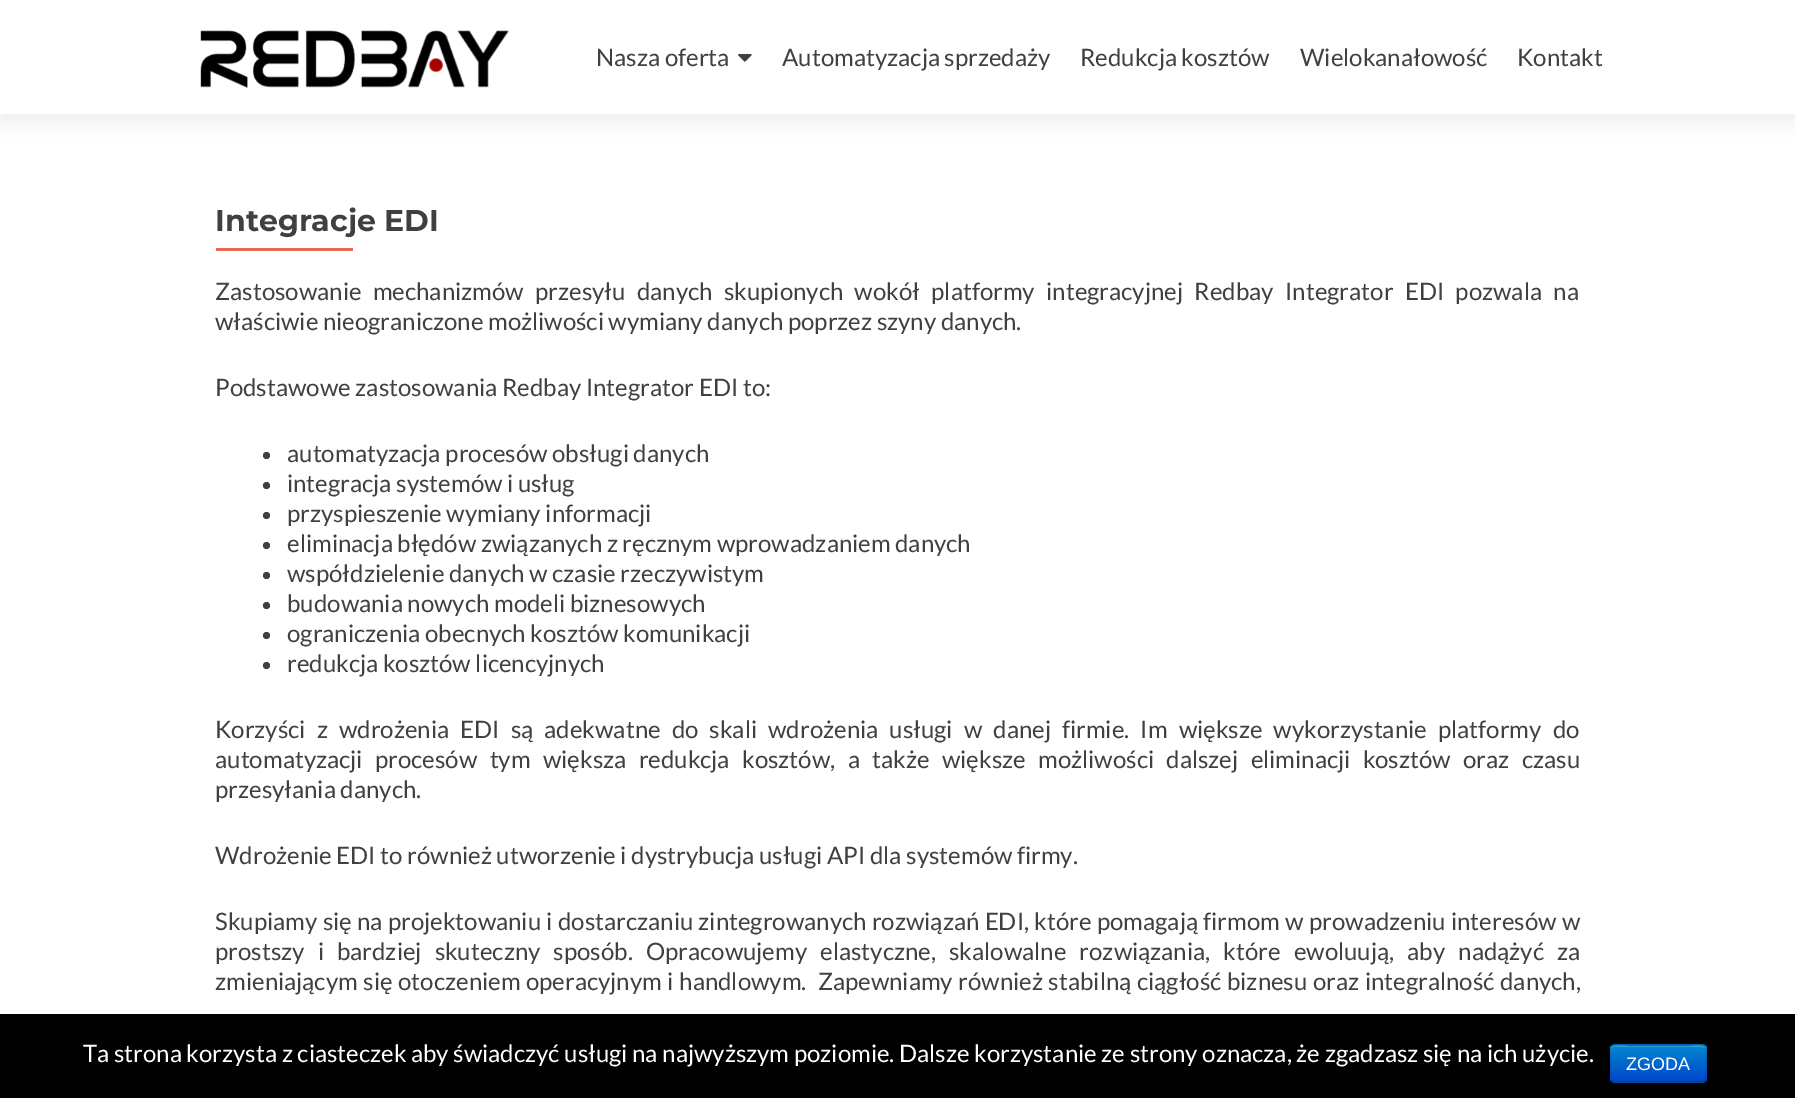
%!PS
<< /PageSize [1795 1098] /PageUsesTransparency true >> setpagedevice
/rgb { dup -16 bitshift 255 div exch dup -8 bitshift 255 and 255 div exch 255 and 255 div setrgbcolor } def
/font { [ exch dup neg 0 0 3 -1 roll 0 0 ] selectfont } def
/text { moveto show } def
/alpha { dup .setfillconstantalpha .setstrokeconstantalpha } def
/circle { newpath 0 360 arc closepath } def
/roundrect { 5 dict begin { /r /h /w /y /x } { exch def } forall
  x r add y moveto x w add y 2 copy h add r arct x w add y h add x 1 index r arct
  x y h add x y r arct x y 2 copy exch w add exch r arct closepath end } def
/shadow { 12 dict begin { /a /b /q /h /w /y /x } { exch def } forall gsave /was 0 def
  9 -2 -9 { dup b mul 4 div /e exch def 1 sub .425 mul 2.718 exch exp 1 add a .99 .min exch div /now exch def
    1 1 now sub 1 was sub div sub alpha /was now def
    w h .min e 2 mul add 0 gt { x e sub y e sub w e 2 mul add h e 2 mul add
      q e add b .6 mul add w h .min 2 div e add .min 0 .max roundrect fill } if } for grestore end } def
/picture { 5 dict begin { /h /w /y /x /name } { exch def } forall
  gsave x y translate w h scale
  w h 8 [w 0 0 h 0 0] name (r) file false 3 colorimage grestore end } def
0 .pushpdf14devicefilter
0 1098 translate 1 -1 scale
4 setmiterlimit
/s1 { /Lato-Regular 24 font 16#404040 rgb } def
/s2 { /Montserrat-Bold 30 font 16#404040 rgb } def
/s3 { /Lato-Regular 24 font 16#FFFFFF rgb } def
/s4 { /LiberationSans-Regular 18 font 16#FFFFFF rgb } def
16#FFFFFF rgb
0 0 1795 1098 rectfill
16#323232 rgb
0 8 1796 114 0 8 0.08 shadow
16#FFFFFF rgb
0 0 1795 114 rectfill
(pic1.raw) 200 30 309 58 picture
s1
(Nasza oferta) 596 66 text
(pic2.raw) 738 54 14 8 picture
(Automatyzacja sprzedaży) 782 66 text
(Redukcja kosztów) 1080 66 text
(Wielokanałowość) 1300 66 text
(Kontakt) 1517 66 text
s2
(Integracje EDI) 215 231 text
16#E96656 rgb
216 248 137 3 rectfill
/Lato-Regular 24 font
16#404040 rgb
215 300 moveto 6.75 0 32 (Zastosowanie mechanizmów przesyłu danych skupionych wokół platformy integracyjnej Redbay Integrator EDI pozwala na) widthshow
(właściwie nieograniczone możliwości wymiany danych poprzez szyny danych.) 215 330 text
(Podstawowe zastosowania Redbay Integrator EDI to:) 215 396 text
266.5 455.5 3.5 circle fill
(automatyzacja procesów obsługi danych) 287 462 text
266.5 485.5 3.5 circle fill
(integracja systemów i usług) 287 492 text
266.5 515.5 3.5 circle fill
(przyspieszenie wymiany informacji) 287 522 text
266.5 545.5 3.5 circle fill
(eliminacja błędów związanych z ręcznym wprowadzaniem danych) 287 552 text
266.5 575.5 3.5 circle fill
(współdzielenie danych w czasie rzeczywistym) 287 582 text
266.5 605.5 3.5 circle fill
(budowania nowych modeli biznesowych) 287 612 text
266.5 635.5 3.5 circle fill
(ograniczenia obecnych kosztów komunikacji) 287 642 text
266.5 665.5 3.5 circle fill
(redukcja kosztów licencyjnych) 287 672 text
215 738 moveto 6.5 0 32 (Korzyści z wdrożenia EDI są adekwatne do skali wdrożenia usługi w danej firmie. Im większe wykorzystanie platformy do) widthshow
215 768 moveto 7.75 0 32 (automatyzacji procesów tym większa redukcja kosztów, a także większe możliwości dalszej eliminacji kosztów oraz czasu) widthshow
(przesyłania danych.) 215 798 text
(Wdrożenie EDI to również utworzenie i dystrybucja usługi API dla systemów firmy.) 215 864 text
215 930 moveto 0.7 0 32 (Skupiamy się na projektowaniu i dostarczaniu zintegrowanych rozwiązań EDI, które pomagają firmom w prowadzeniu interesów w) widthshow
215 960 moveto 8.5 0 32 (prostszy i bardziej skuteczny sposób. Opracowujemy elastyczne, skalowalne rozwiązania, które ewoluują, aby nadążyć za) widthshow
215 990 moveto 1 0 32 (zmieniającym się otoczeniem operacyjnym i handlowym.  Zapewniamy również stabilną ciągłość biznesu oraz integralność danych,) widthshow
16#000000 rgb
0 1014 1795 84 rectfill
s3
(Ta strona korzysta z ciasteczek aby świadczyć usługi na najwyższym poziomie. Dalsze korzystanie ze strony oznacza, że zgadzasz się na ich użycie.) 83 1062 text
16#006DCC rgb
1610 1044 97 39 5 roundrect fill
gsave
1610 1044 97 39 5 roundrect clip newpath
gsave 1610 1046 moveto 1707 1046 lineto 1707 1082 lineto 1610 1082 lineto closepath clip newpath
<< /ShadingType 2 /ColorSpace /DeviceRGB /Coords [1658 1046 1658 1082] /Extend [true true] /Function << /FunctionType 2 /Domain [0 1] /C0 [0 0.533 0.8] /C1 [0 0.267 0.8] /N 1 >> >> shfill grestore
grestore
0.2 alpha
16#FFFFFF rgb
1614 1047 moveto 1702 1047 lineto 1704 1047 1706 1048 1706 1050 curveto 1706 1042 1691 1046 1688 1046 curveto 1629 1046 lineto 1626 1046 1611 1042 1611 1050 curveto 1611 1048 1612 1047 1614 1047 curveto closepath fill
0.25 alpha
16#000000 rgb
1.5 setlinewidth
1705 1081 moveto 1703 1082 lineto 1613.5 1082 lineto 1611.5 1081 lineto stroke
0.1 alpha
1611.5 1081 moveto 1609.5 1079.5 1610 1075.5 1610 1073.5 curveto 1610 1063.5 lineto 1610 1042 1606.5 1045 1629 1045 curveto 1688 1045 lineto 1710 1045 1706 1042 1706 1063.5 curveto 1706 1073.5 lineto 1706 1075.5 1707 1079.5 1705 1081 curveto stroke
1 alpha
s4
(ZGODA) 1626 1070 text
.poppdf14devicefilter showpage
